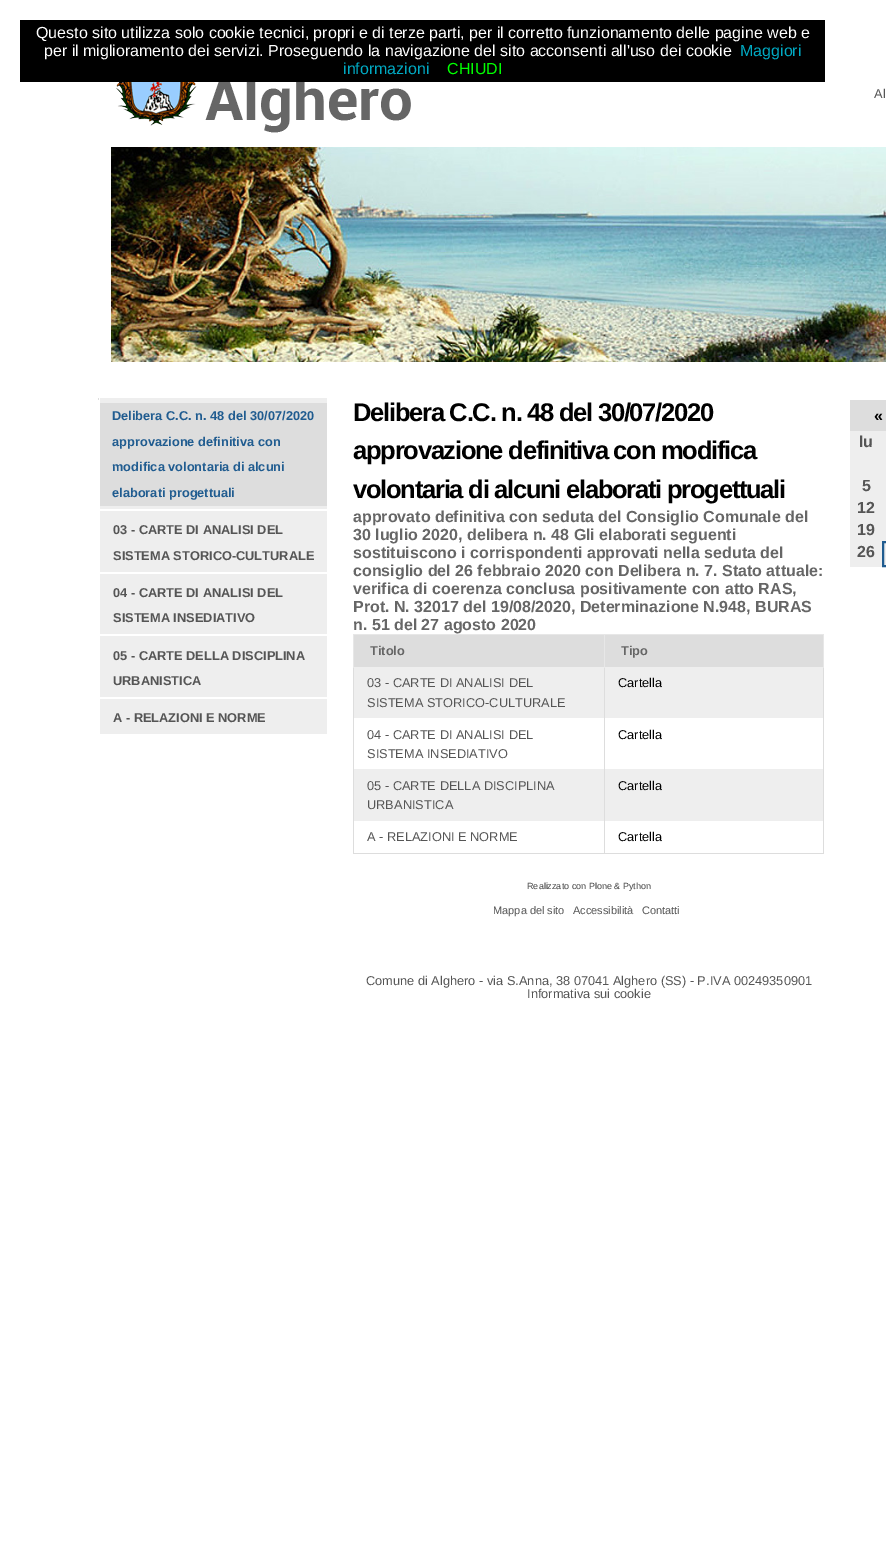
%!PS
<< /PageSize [886 1552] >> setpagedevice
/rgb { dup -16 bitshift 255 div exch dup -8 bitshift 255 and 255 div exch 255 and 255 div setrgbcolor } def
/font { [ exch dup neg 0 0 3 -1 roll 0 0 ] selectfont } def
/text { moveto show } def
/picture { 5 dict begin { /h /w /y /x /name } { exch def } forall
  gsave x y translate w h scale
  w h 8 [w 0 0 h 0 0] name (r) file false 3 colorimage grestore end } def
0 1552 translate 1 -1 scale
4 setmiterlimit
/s1 { /LiberationSans-Regular 16 font 16#FFFFFF rgb } def
/s2 { /LiberationSans-Regular 16 font 16#00AAC3 rgb } def
/s3 { /LiberationSans-Regular 16 font 16#00FF00 rgb } def
/s4 { /LiberationSans-Regular 12.8 font 16#555555 rgb } def
/s5 { /LiberationSans-Bold 12.8 font 16#205C90 rgb } def
/s6 { /LiberationSans-Bold 12.8 font 16#555555 rgb } def
/s7 { /LiberationSans-Bold 16 font 16#666666 rgb } def
/s8 { /LiberationSans-Bold 12.8 font 16#666666 rgb } def
/s9 { /LiberationSans-Regular 12.8 font 16#000000 rgb } def
/s10 { /LiberationSans-Bold 16 font 16#000000 rgb } def
/s11 { /LiberationSans-Bold 16 font 16#555555 rgb } def
/s12 { /LiberationSans-Regular 9 font 16#444444 rgb } def
/s13 { /LiberationSans-Regular 11 font 16#555555 rgb } def
16#FFFFFF rgb
0 0 886 1552 rectfill
16#000000 rgb
20 20 805 62 rectfill
s1
(Questo sito utilizza solo cookie tecnici, propri e di terze parti, per il corretto funzionamento delle pagine web e) 36 38 text
(per il miglioramento dei servizi. Proseguendo la navigazione del sito acconsenti all'uso dei cookie) 44 56 text
s2
(Maggiori) 740 56 text
(informazioni) 343 74 text
s3
(CHIUDI) 447 74 text
(pic1.raw) 115 82 296 51 picture
s4
(Al) 874 98 text
(pic2.raw) 111 147 775 215 picture
16#EEEEEE rgb
100 398 227 336 rectfill
16#DDDDDD rgb
98 398 1 2 rectfill
16#FFFFFF rgb
100 509 227 2 rectfill
16#DDDDDD rgb
100 403 227 103 rectfill
s5
(Delibera C.C. n. 48 del 30/07/2020) 112 420 text
(approvazione definitiva con) 112 446 text
(modifica volontaria di alcuni) 112 471 text
(elaborati progettuali) 112 497 text
16#FFFFFF rgb
100 572 227 2 rectfill
s6
(03 - CARTE DI ANALISI DEL) 113 534 text
(SISTEMA STORICO-CULTURALE) 113 560 text
16#FFFFFF rgb
100 634 227 2 rectfill
s6
(04 - CARTE DI ANALISI DEL) 113 597 text
(SISTEMA INSEDIATIVO) 113 622 text
16#FFFFFF rgb
100 697 227 2 rectfill
s6
(05 - CARTE DELLA DISCIPLINA) 113 660 text
(URBANISTICA) 113 685 text
(A - RELAZIONI E NORME) 113 722 text
/LiberationSans-Bold 25.6 font
16#000000 rgb
353 421 moveto -1.3 0 (Delibera C.C. n. 48 del 30/07/2020) ashow
353 459 moveto -1.3 0 (approvazione definitiva con modifica) ashow
353 498 moveto -1.3 0 (volontaria di alcuni elaborati progettuali) ashow
s7
(approvato definitiva con seduta del Consiglio Comunale del) 353 522 text
(30 luglio 2020, delibera n. 48 Gli elaborati seguenti) 353 540 text
(sostituiscono i corrispondenti approvati nella seduta del) 353 558 text
(consiglio del 26 febbraio 2020 con Delibera n. 7. Stato attuale:) 353 576 text
(verifica di coerenza conclusa positivamente con atto RAS,) 353 594 text
(Prot. N. 32017 del 19/08/2020, Determinazione N.948, BURAS) 353 612 text
(n. 51 del 27 agosto 2020) 353 630 text
16#DDDDDD rgb
353 853 471 1 rectfill
353 668 1 186 rectfill
354 635 250 32 rectfill
16#E7E7E7 rgb
604 634 220 1 rectfill
16#EEEEEE rgb
354 667 469 51 rectfill
354 769 469 52 rectfill
16#DDDDDD rgb
604 667 1 187 rectfill
16#E7E7E7 rgb
604 634 1 34 rectfill
353 634 252 1 rectfill
353 634 1 34 rectfill
s8
(Titolo) 370 655 text
16#DDDDDD rgb
605 635 218 32 rectfill
823 667 1 187 rectfill
16#E7E7E7 rgb
823 634 1 34 rectfill
s8
(Tipo) 621 655 text
s4
(03 - CARTE DI ANALISI DEL) 367 687 text
(SISTEMA STORICO-CULTURALE) 367 707 text
s9
(Cartella) 618 687 text
s4
(04 - CARTE DI ANALISI DEL) 367 739 text
(SISTEMA INSEDIATIVO) 367 758 text
s9
(Cartella) 618 739 text
s4
(05 - CARTE DELLA DISCIPLINA) 367 790 text
(URBANISTICA) 367 809 text
s9
(Cartella) 618 790 text
s4
(A - RELAZIONI E NORME) 367 841 text
s9
(Cartella) 618 841 text
16#EEEEEE rgb
850 431 36 136 rectfill
16#DDDDDD rgb
850 400 36 31 rectfill
s10
(«) 874 421 text
s11
(lu) 859 447 text
(5) 862 491 text
(12) 857 513 text
(19) 857 535 text
(26) 857 557 text
16#205C90 rgb
2 setlinewidth
883 542 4 24 rectstroke
s12
(Realizzato con Plone & Python) 527 889 text
s13
(Mappa del sito) 493 914 text
(Accessibilità) 573 914 text
(Contatti) 642 914 text
s4
(Comune di Alghero - via S.Anna, 38 07041 Alghero \(SS\) - P.IVA 00249350901) 366 985 text
(Informativa sui cookie) 527 998 text
showpage
